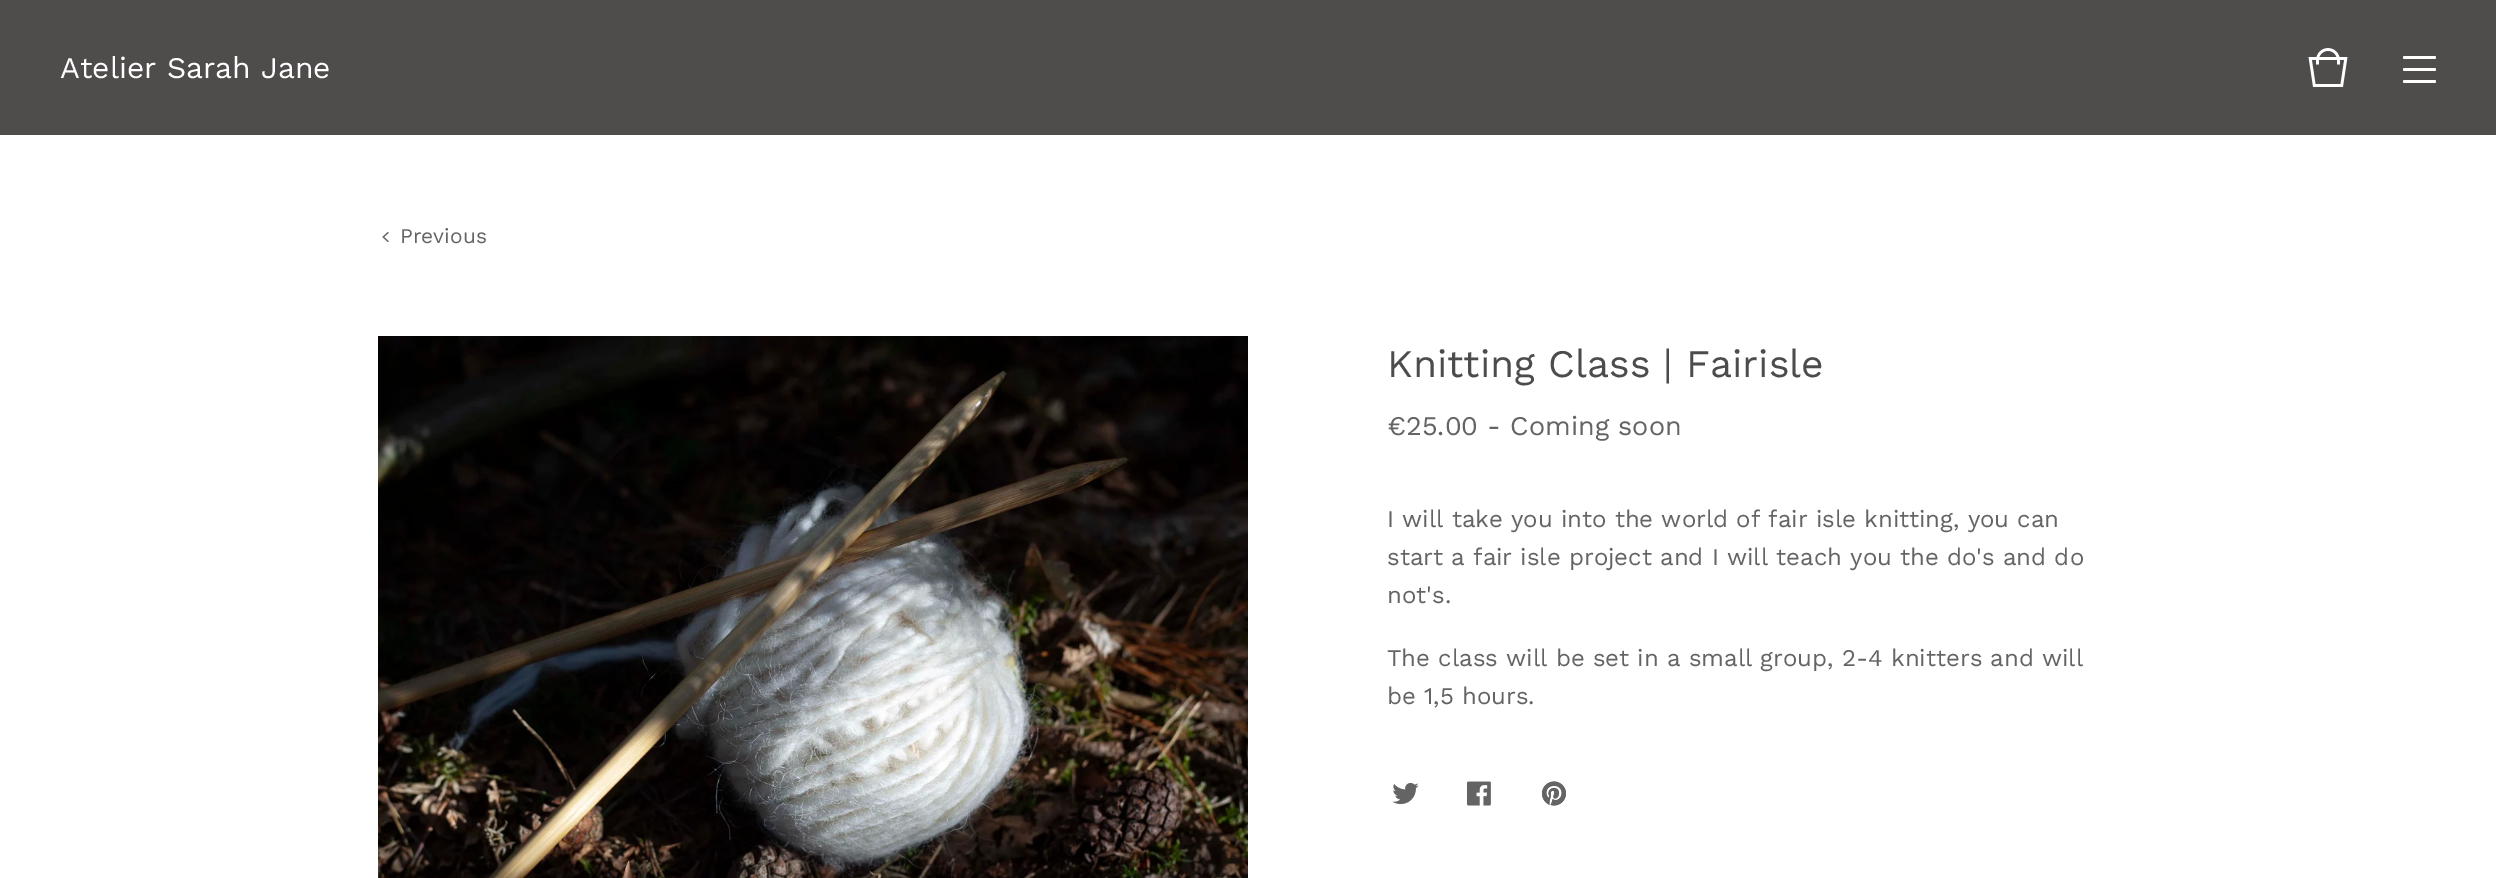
%!PS
<< /PageSize [2496 878] >> setpagedevice
/rgb { dup -16 bitshift 255 div exch dup -8 bitshift 255 and 255 div exch 255 and 255 div setrgbcolor } def
/font { [ exch dup neg 0 0 3 -1 roll 0 0 ] selectfont } def
/text { moveto show } def
/roundrect { 5 dict begin { /r /h /w /y /x } { exch def } forall
  x r add y moveto x w add y 2 copy h add r arct x w add y h add x 1 index r arct
  x y h add x y r arct x y 2 copy exch w add exch r arct closepath end } def
/picture { 5 dict begin { /h /w /y /x /name } { exch def } forall
  gsave x y translate w h scale
  w h 8 [w 0 0 h 0 0] name (r) file false 3 colorimage grestore end } def
0 878 translate 1 -1 scale
4 setmiterlimit
/s1 { /WorkSans-Regular 30 font 16#FFFFFF rgb } def
/s2 { /WorkSans-Regular 21 font 16#646464 rgb } def
/s3 { /WorkSans-Regular 39 font 16#4D4B4B rgb } def
/s4 { /WorkSans-Regular 27 font 16#646464 rgb } def
/s5 { /WorkSans-Regular 24 font 16#646464 rgb } def
16#FFFFFF rgb
0 0 2496 878 rectfill
16#4F4C4C rgb
0 0 2496 135 rectfill
s1
(Atelier Sarah Jane) 60 78 text
(pic1.raw) 2308 48 40 39 picture
2403 56 33 3 1.5 roundrect fill
2403 68 33 3 1.5 roundrect fill
2403 80 33 3 1.5 roundrect fill
(pic2.raw) 382 231 7 12 picture
s2
(Previous) 400 243 text
(pic3.raw) 378 336 870 542 picture
s3
(Knitting Class | Fairisle) 1387 377 text
s4
(€25.00 - Coming soon) 1387 435 text
s5
(I will take you into the world of fair isle knitting, you can) 1387 527 text
(start a fair isle project and I will teach you the do's and do) 1387 565 text
(not's.) 1387 603 text
(The class will be set in a small group, 2-4 knitters and will) 1387 666 text
(be 1,5 hours.) 1387 704 text
(pic4.raw) 1392 782 27 23 picture
(pic5.raw) 1467 781 24 25 picture
(pic6.raw) 1542 781 24 25 picture
showpage
